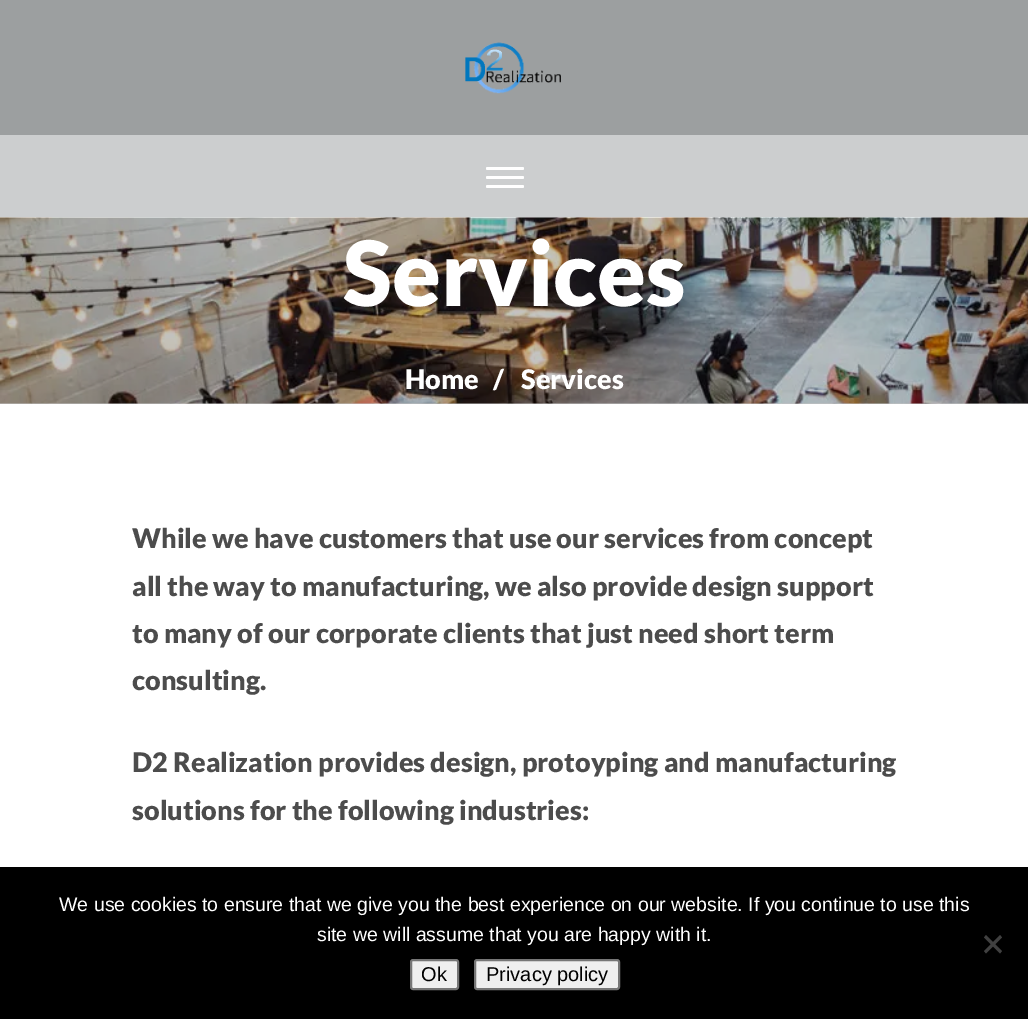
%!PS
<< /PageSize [1028 1019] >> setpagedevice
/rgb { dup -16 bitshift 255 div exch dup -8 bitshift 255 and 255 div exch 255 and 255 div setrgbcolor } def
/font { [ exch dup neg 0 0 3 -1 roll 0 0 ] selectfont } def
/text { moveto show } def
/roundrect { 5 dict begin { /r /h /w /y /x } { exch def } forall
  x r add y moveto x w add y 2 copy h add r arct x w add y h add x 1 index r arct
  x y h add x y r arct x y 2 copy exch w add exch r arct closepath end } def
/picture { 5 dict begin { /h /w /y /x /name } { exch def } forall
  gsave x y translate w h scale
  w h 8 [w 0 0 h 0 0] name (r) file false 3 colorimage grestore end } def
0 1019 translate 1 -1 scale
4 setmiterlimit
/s1 { /Lato-Black 90 font 16#FFFFFF rgb } def
/s2 { /Lato-Black 27 font 16#FFFFFF rgb } def
/s3 { /Lato-Black 27 font 16#4C4C4C rgb } def
/s4 { /LiberationSans-Regular 19.5 font 16#FFFFFF rgb } def
/s5 { /LiberationSans-Regular 20 font 16#000000 rgb } def
16#FFFFFF rgb
0 0 1028 1019 rectfill
16#C4C4C4 rgb
0 403 1028 1 rectfill
16#9C9FA0 rgb
0 0 1028 135 rectfill
(pic1.raw) 465 42 96 52 picture
16#CCCECF rgb
0 135 1028 83 rectfill
16#FFFFFF rgb
486 167 38 3 1.5 roundrect fill
486 176 38 3 1.5 roundrect fill
486 185 38 3 1.5 roundrect fill
(pic2.raw) 0 217 1028 187 picture
s1
(Services) 343 306 text
s2
(Home) 405 389 text
(/) 493 389 text
(Services) 521 389 text
s3
(While we have customers that use our services from concept) 132 548 text
(all the way to manufacturing, we also provide design support) 132 596 text
(to many of our corporate clients that just need short term) 132 643 text
(consulting.) 132 690 text
(D2 Realization provides design, protoyping and manufacturing) 132 772 text
(solutions for the following industries:) 132 820 text
16#000000 rgb
0 867 1028 152 rectfill
s4
(We use cookies to ensure that we give you the best experience on our website. If you continue to use this) 59 911 text
(site we will assume that you are happy with it.) 317 941 text
16#404040 rgb
1000 935 moveto 1002 937.5 lineto 986 953.5 lineto 984 951 lineto closepath fill
984 937.5 moveto 986 935 lineto 1002 951 lineto 1000 953.5 lineto closepath fill
16#EFEFEF rgb
411 960 47 29 2 roundrect gsave fill grestore
16#767676 rgb
2 setlinewidth
stroke
s5
(Ok) 421 981 text
16#EFEFEF rgb
475 960 144 29 2 roundrect gsave fill grestore
16#767676 rgb
stroke
s5
(Privacy policy) 486 981 text
showpage
